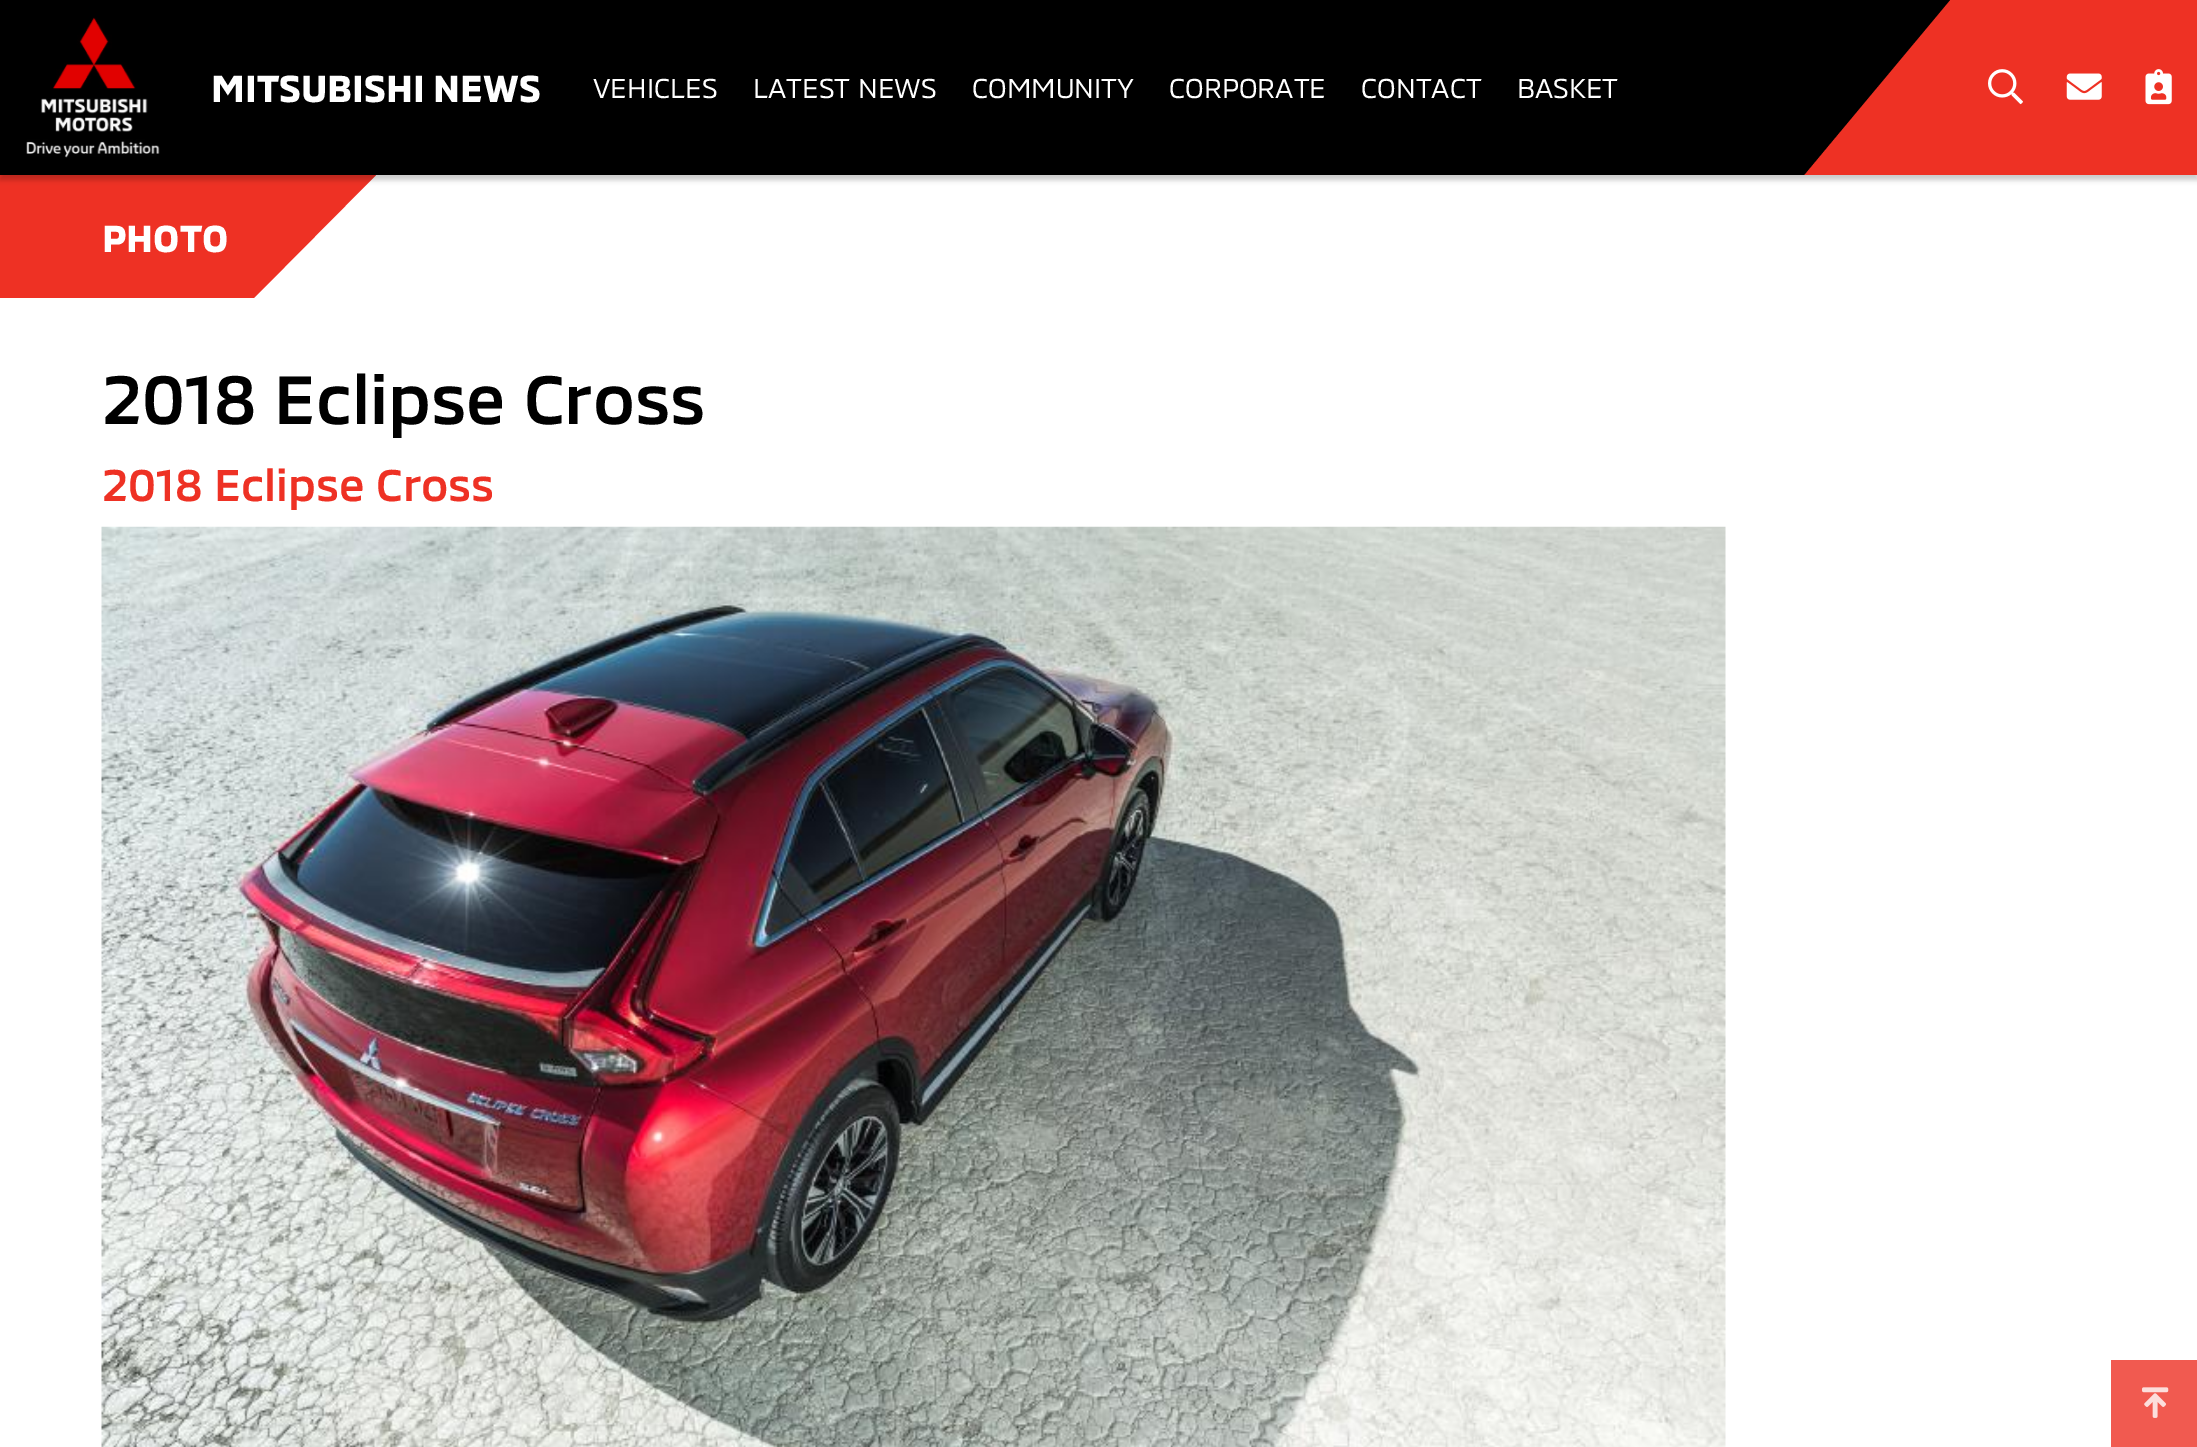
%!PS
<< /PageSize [2197 1447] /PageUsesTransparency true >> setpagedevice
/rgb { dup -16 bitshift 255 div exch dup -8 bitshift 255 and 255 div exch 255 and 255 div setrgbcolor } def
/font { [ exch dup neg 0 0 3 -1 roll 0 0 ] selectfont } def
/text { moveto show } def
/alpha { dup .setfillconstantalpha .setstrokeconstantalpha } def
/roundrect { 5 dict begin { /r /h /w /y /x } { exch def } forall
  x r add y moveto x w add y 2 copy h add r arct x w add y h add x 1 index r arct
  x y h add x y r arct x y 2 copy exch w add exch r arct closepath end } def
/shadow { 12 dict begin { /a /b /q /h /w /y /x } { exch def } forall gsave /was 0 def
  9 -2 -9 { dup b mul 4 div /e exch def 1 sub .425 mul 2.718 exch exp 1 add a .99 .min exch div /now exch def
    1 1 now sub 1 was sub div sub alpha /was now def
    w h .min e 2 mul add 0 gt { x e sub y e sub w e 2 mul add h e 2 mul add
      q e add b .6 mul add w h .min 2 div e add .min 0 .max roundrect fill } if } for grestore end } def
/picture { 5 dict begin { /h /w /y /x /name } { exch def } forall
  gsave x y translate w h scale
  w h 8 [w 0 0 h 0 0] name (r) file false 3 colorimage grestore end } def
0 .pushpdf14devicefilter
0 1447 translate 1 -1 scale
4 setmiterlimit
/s1 { /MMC-Bold 38.5 font 16#FFFFFF rgb } def
/s2 { /MMC-Regular 28 font 16#FFFFFF rgb } def
/s3 { /MMC-Medium 70 font 16#000000 rgb } def
/s4 { /MMC-Medium 45.5 font 16#EE3124 rgb } def
16#FFFFFF rgb
0 0 2197 1447 rectfill
16#EE3124 rgb
0 175 254 123 rectfill
254 298 moveto 254 175 lineto 376 175 lineto closepath fill
16#000000 rgb
0 5 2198 175 0 2.5 0.2 shadow
0 0 1804 175 rectfill
16#EE3124 rgb
1804 0 393 175 rectfill
(pic1.raw) 26 17 134 141 picture
s1
(MITSUBISHI NEWS) 211 102 text
s2
(VEHICLES) 593 98 text
(LATEST NEWS) 753 98 text
(COMMUNITY) 972 98 text
(CORPORATE) 1169 98 text
(CONTACT) 1361 98 text
(BASKET) 1517 98 text
16#000000 rgb
1804 175 moveto 1804 0 lineto 1950 0 lineto closepath fill
(pic2.raw) 1988 69 35 36 picture
(pic3.raw) 2066 73 36 27 picture
(pic4.raw) 2145 69 27 36 picture
s1
(PHOTO) 102 252 text
s3
(2018 Eclipse Cross) 102 424 text
s4
(2018 Eclipse Cross) 102 501 text
(pic5.raw) 101 526 1625 921 picture
16#F15A50 rgb
2111 1360 86 87 rectfill
(pic6.raw) 2142 1387 27 31 picture
.poppdf14devicefilter showpage
